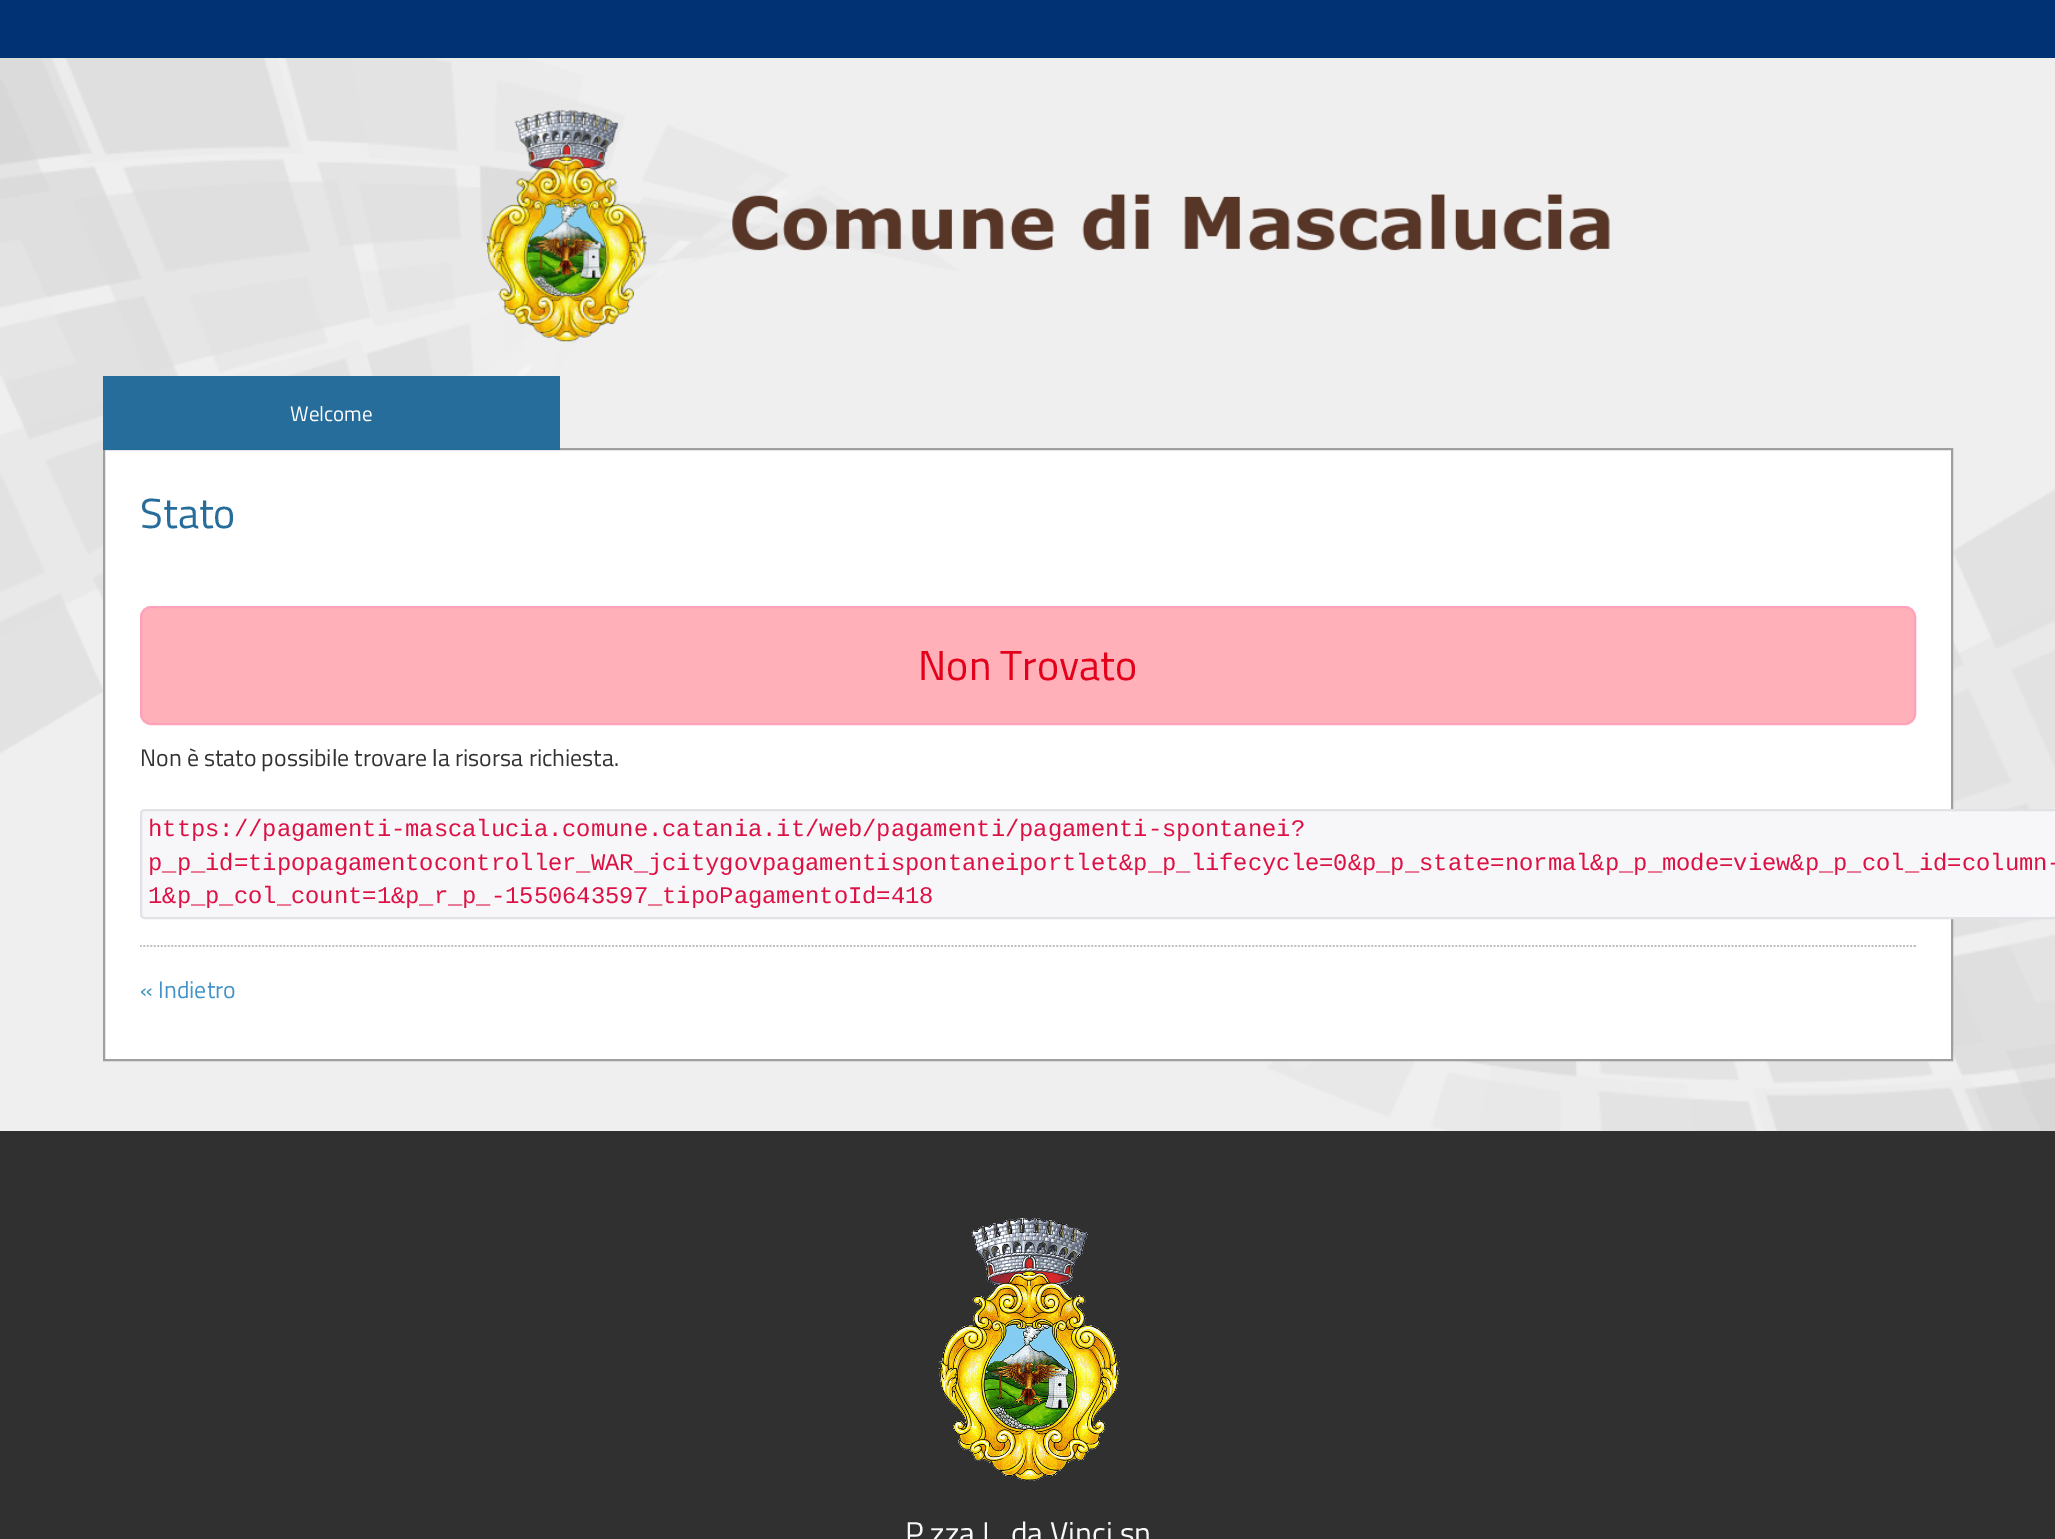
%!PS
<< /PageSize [2055 1539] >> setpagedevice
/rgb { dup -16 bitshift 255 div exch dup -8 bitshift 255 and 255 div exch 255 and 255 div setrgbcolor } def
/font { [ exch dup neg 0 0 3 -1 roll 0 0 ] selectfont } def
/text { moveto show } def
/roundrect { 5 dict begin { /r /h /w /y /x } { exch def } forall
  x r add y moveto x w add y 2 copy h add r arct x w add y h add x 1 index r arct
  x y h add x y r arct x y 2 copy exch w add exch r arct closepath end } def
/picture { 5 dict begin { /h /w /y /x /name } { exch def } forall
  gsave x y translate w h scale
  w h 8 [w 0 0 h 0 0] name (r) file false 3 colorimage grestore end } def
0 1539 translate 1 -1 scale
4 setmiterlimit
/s1 { /TitilliumWeb-Regular 21 font 16#FFFFFF rgb } def
/s2 { /TitilliumWeb-Regular 42 font 16#276D9C rgb } def
/s3 { /TitilliumWeb-Regular 42 font 16#E3001A rgb } def
/s4 { /TitilliumWeb-Regular 23.8 font 16#333333 rgb } def
/s5 { /LiberationMono-Regular 23.8 font 16#DD1144 rgb } def
/s6 { /TitilliumWeb-Regular 23.8 font 16#4393C8 rgb } def
/s7 { /TitilliumWeb-Regular 31.5 font 16#F8F8F8 rgb } def
16#EFEFEF rgb
0 0 2055 1539 rectfill
(pic1.raw) 0 58 2055 1073 picture
16#003274 rgb
0 0 2055 58 rectfill
(pic2.raw) 485 110 1125 232 picture
16#FFFFFF rgb
104 449 moveto 1952 449 lineto 1952 1060 lineto 104 1060 lineto closepath gsave fill grestore
16#9F9F9F rgb
2 setlinewidth
stroke
16#276D9C rgb
103 376 457 74 rectfill
s1
(Welcome) 290 421 text
s2
(Stato) 140 528 text
16#FFB0B9 rgb
141 607 1774 117 10 roundrect gsave fill grestore
16#FFA1BB rgb
stroke
s3
(Non Trovato) 918 680 text
s4
(Non è stato possibile trovare la risorsa richiesta.) 140 766 text
16#F7F7F9 rgb
141 810 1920 108 4 roundrect gsave fill grestore
16#E1E1E8 rgb
stroke
s5
(https://pagamenti-mascalucia.comune.catania.it/web/pagamenti/pagamenti-spontanei?) 148 836 text
(p_p_id=tipopagamentocontroller_WAR_jcitygovpagamentispontaneiportlet&p_p_lifecycle=0&p_p_state=normal&p_p_mode=view&p_p_col_id=column-) 148 870 text
(1&p_p_col_count=1&p_r_p_-1550643597_tipoPagamentoId=418) 148 903 text
16#BFBFBF rgb
1.8 setlinewidth
[1.75 1.75] 0 setdash
140 946 moveto 1916 946 lineto stroke
s6
(« Indietro) 140 998 text
16#303030 rgb
0 1131 2055 408 rectfill
(pic3.raw) 938 1218 182 263 picture
s7
(P.zza L. da Vinci sn) 905 1544 text
showpage
